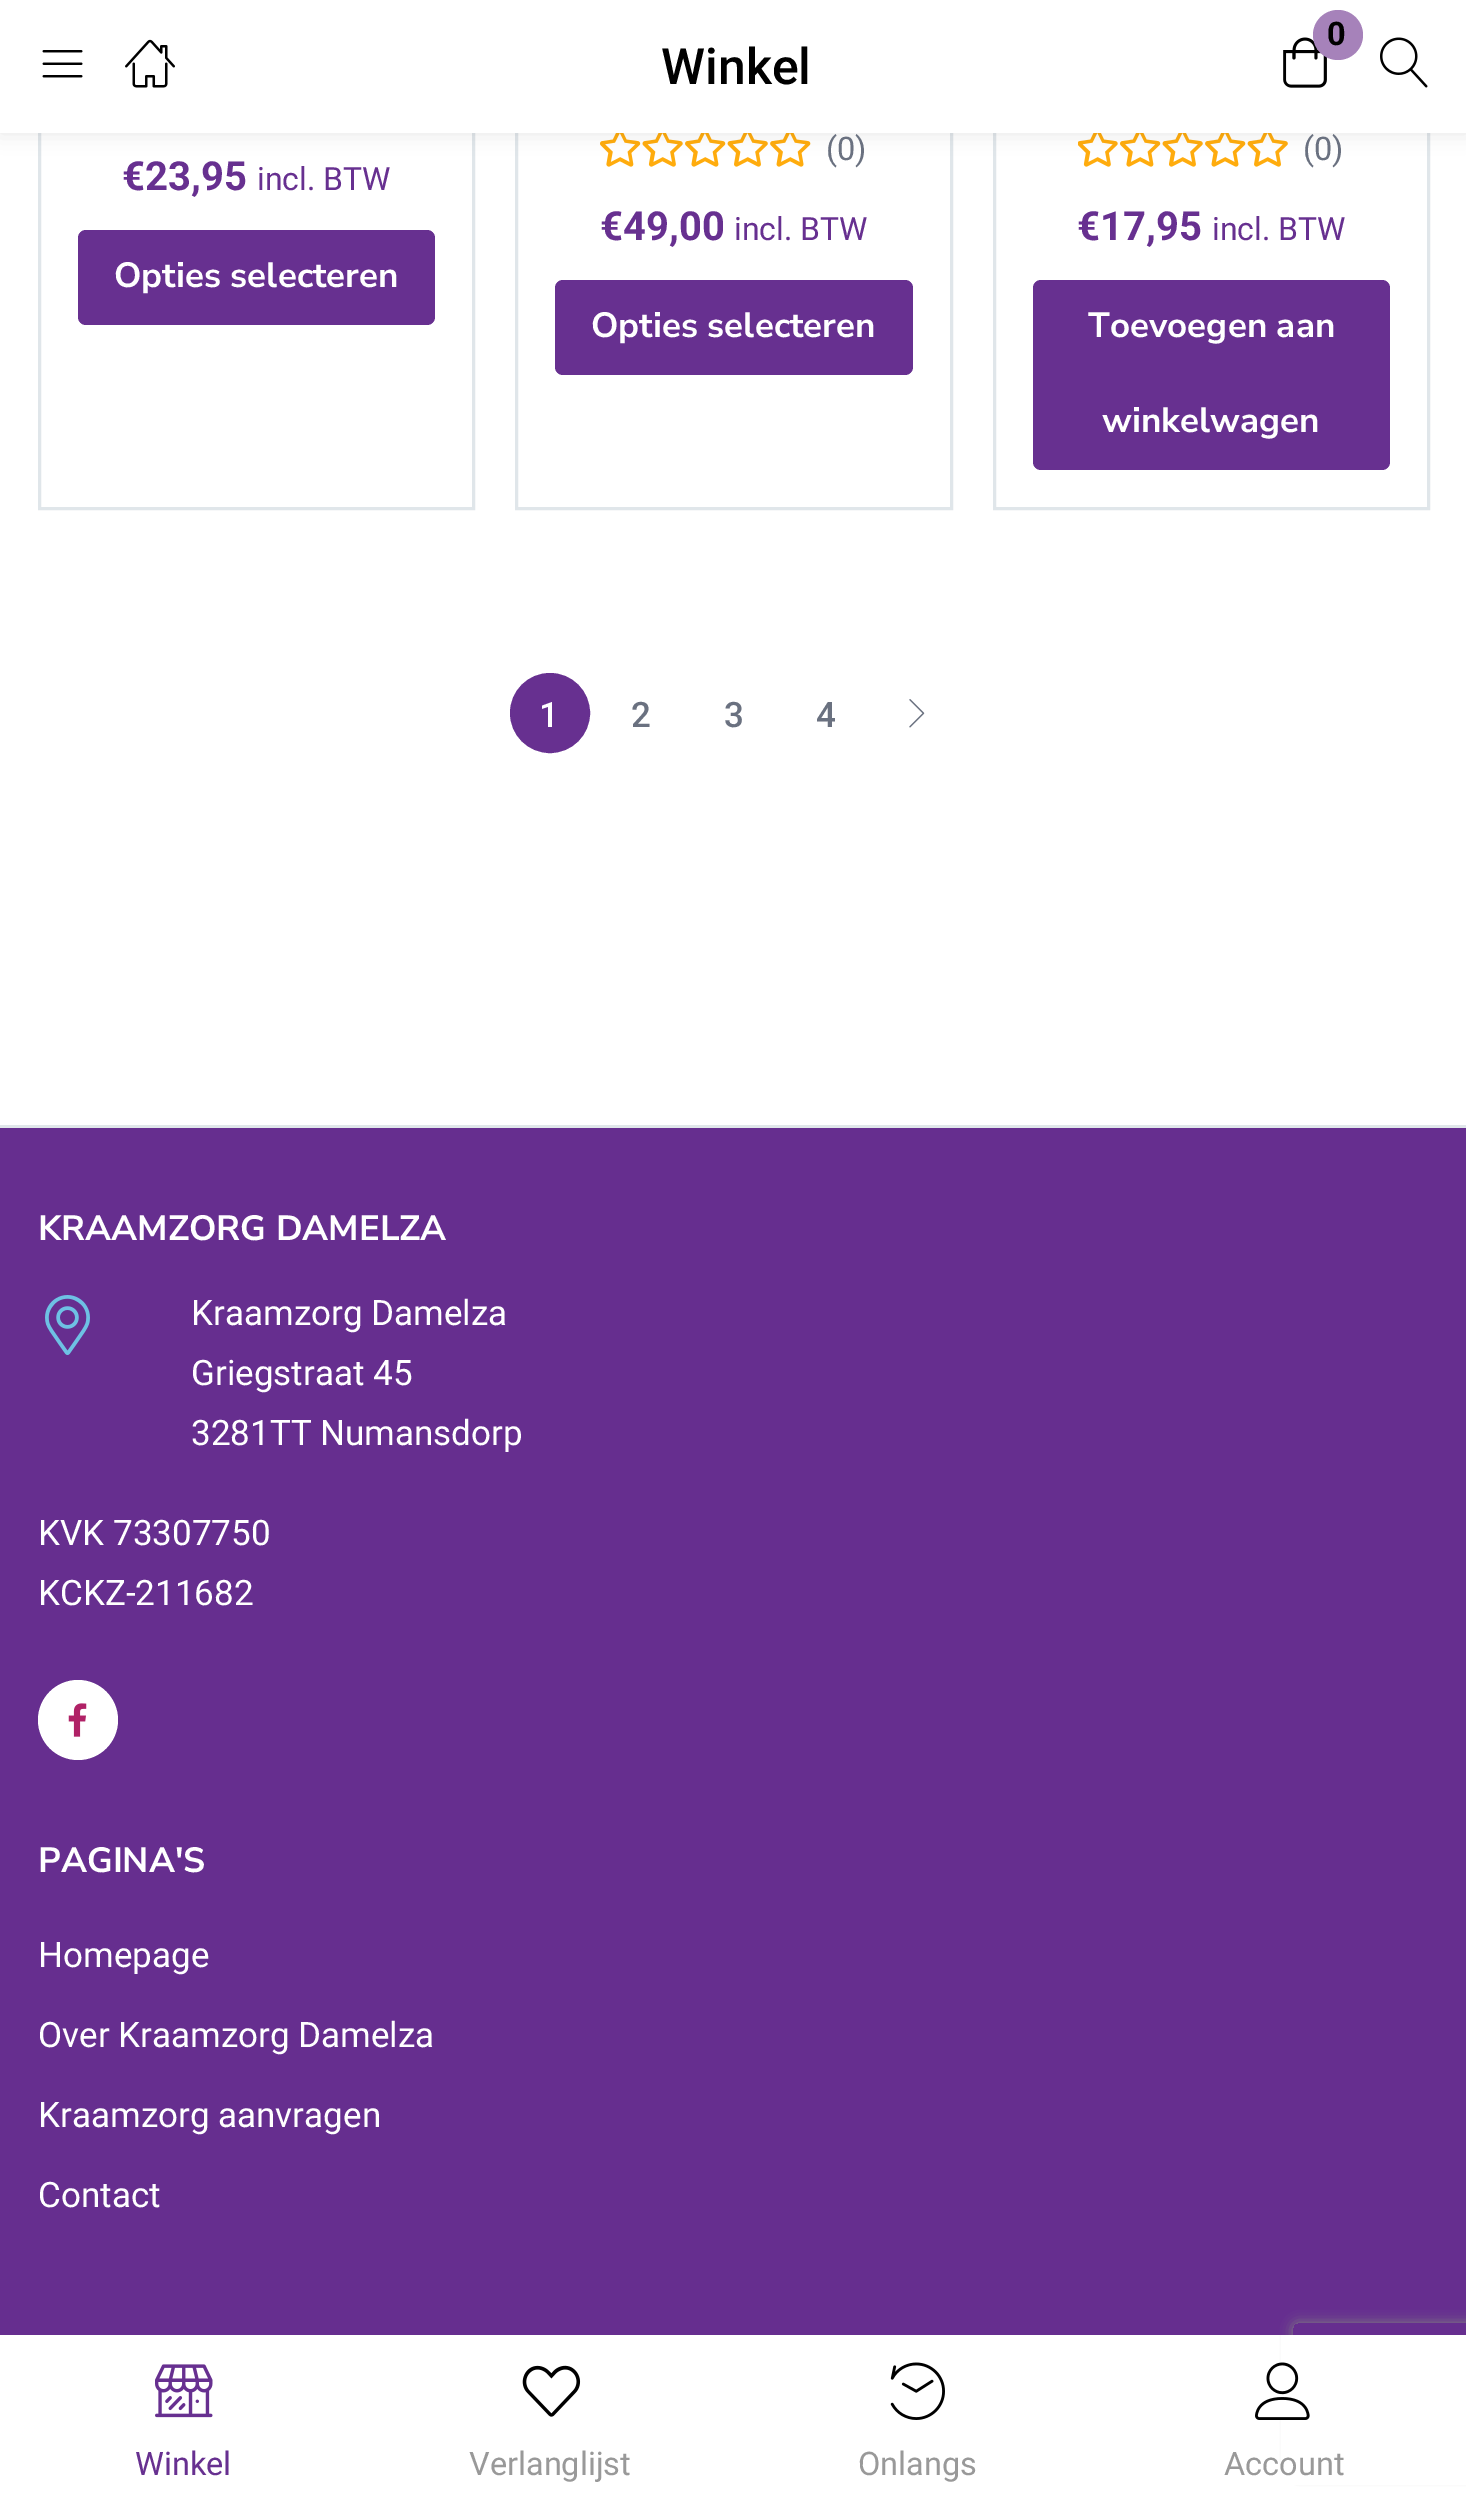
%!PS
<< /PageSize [1466 2507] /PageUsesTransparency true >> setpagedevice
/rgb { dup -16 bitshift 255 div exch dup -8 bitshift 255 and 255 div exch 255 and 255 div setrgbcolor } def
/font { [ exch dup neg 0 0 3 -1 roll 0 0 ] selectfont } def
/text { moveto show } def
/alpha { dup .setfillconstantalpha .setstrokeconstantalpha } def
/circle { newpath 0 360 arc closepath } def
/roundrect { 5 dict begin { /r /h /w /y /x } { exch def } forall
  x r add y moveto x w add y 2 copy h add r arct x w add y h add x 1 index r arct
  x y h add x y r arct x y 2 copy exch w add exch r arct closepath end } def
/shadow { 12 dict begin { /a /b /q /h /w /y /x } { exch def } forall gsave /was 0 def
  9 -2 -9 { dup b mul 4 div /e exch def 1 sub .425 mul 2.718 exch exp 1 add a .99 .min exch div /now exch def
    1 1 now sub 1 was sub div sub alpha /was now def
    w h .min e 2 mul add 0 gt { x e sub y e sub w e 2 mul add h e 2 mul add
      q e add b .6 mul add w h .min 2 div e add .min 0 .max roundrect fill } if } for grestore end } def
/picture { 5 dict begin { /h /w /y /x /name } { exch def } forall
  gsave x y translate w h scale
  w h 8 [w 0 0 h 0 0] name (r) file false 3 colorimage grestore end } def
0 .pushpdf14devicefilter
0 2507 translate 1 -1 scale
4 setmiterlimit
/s1 { /Roboto-Bold 32.5 font 16#000000 rgb } def
/s2 { /Roboto-Medium 50 font 16#000000 rgb } def
/s3 { /Roboto-Bold 40 font 16#673090 rgb } def
/s4 { /Roboto-Regular 32 font 16#673090 rgb } def
/s5 { /NunitoSans-Bold 35 font 16#FFFFFF rgb } def
/s6 { /Roboto-Regular 32.5 font 16#6A7180 rgb } def
/s7 { /Roboto-Medium 35 font 16#FFFFFF rgb } def
/s8 { /Roboto-Medium 35 font 16#6A7180 rgb } def
/s9 { /Roboto-Regular 35 font 16#FFFFFF rgb } def
/s10 { /Roboto-Regular 32.5 font 16#673090 rgb } def
/s11 { /Roboto-Regular 32.5 font 16#999999 rgb } def
16#FFFFFF rgb
0 0 1466 2507 rectfill
16#E0E6EA rgb
3 setlinewidth
39.5 -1.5 434 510 rectstroke
516.5 -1.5 435 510 rectstroke
(pic5.raw) 600 133 211 34 picture
994.5 -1.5 434 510 rectstroke
(pic6.raw) 1078 133 210 34 picture
16#000000 rgb
0 0 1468 133 0 10 0.1 shadow
16#FFFFFF rgb
0 0 1466 133 rectfill
(pic1.raw) 1283 37 44 51 picture
16#A682BA rgb
1338 35 25 circle fill
s1
(0) 1327 45 text
(pic2.raw) 42 50 41 28 picture
(pic3.raw) 125 39 50 49 picture
s2
(Winkel) 661 84 text
(pic4.raw) 1380 37 48 51 picture
s3
(€23,95) 122 190 text
s4
(incl. BTW) 257 190 text
78 230 357 95 8 roundrect fill
s5
(Opties selecteren) 114 287 text
s6
(\(0\)) 826 160 text
s3
(€49,00) 600 240 text
s4
(incl. BTW) 734 240 text
555 280 358 95 8 roundrect fill
s5
(Opties selecteren) 591 337 text
s6
(\(0\)) 1303 160 text
s3
(€17,95) 1077 240 text
s4
(incl. BTW) 1212 240 text
1033 280 357 190 8 roundrect fill
s5
(Toevoegen aan) 1088 337 text
(winkelwagen) 1102 432 text
16#673090 rgb
550 713 38.5 circle gsave fill grestore
stroke
s7
(1) 539 727 text
s8
(2) 631 727 text
(3) 724 727 text
(4) 816 727 text
(pic7.raw) 909 699 16 29 picture
16#662E8F rgb
0 1128 1466 1207 rectfill
16#E0E6EA rgb
0 1125 1466 3 rectfill
s5
(KRAAMZORG DAMELZA) 38 1240 text
(pic8.raw) 45 1295 45 60 picture
s9
(Kraamzorg Damelza) 191 1325 text
(Griegstraat 45) 191 1385 text
(3281TT Numansdorp) 191 1445 text
(KVK 73307750) 38 1545 text
(KCKZ-211682) 38 1605 text
78 1720 40 circle fill
(pic9.raw) 68 1703 19 34 picture
s5
(PAGINA'S) 38 1872 text
s9
(Homepage) 38 1967 text
(Over Kraamzorg Damelza) 38 2047 text
(Kraamzorg aanvragen) 38 2127 text
(Contact) 38 2207 text
gsave
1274 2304 moveto 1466 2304 lineto 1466 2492 lineto 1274 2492 lineto closepath 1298 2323 moveto 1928 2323 lineto 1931 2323 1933 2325 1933 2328 curveto 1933 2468 lineto 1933 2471 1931 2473 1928 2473 curveto 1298 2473 lineto 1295 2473 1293 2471 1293 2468 curveto 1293 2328 lineto 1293 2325 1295 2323 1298 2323 curveto closepath eoclip newpath
16#808080 rgb
1293 2323 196 150 5 6 1 shadow
grestore
1281 2335 185 150 rectfill
(pic10.raw) 155 2364 58 54 picture
s10
(Winkel) 135 2475 text
(pic11.raw) 522 2365 59 52 picture
s11
(Verlanglijst) 469 2475 text
(pic12.raw) 890 2362 55 58 picture
(Onlangs) 858 2475 text
(pic13.raw) 1255 2362 55 58 picture
(Account) 1224 2475 text
.poppdf14devicefilter showpage
